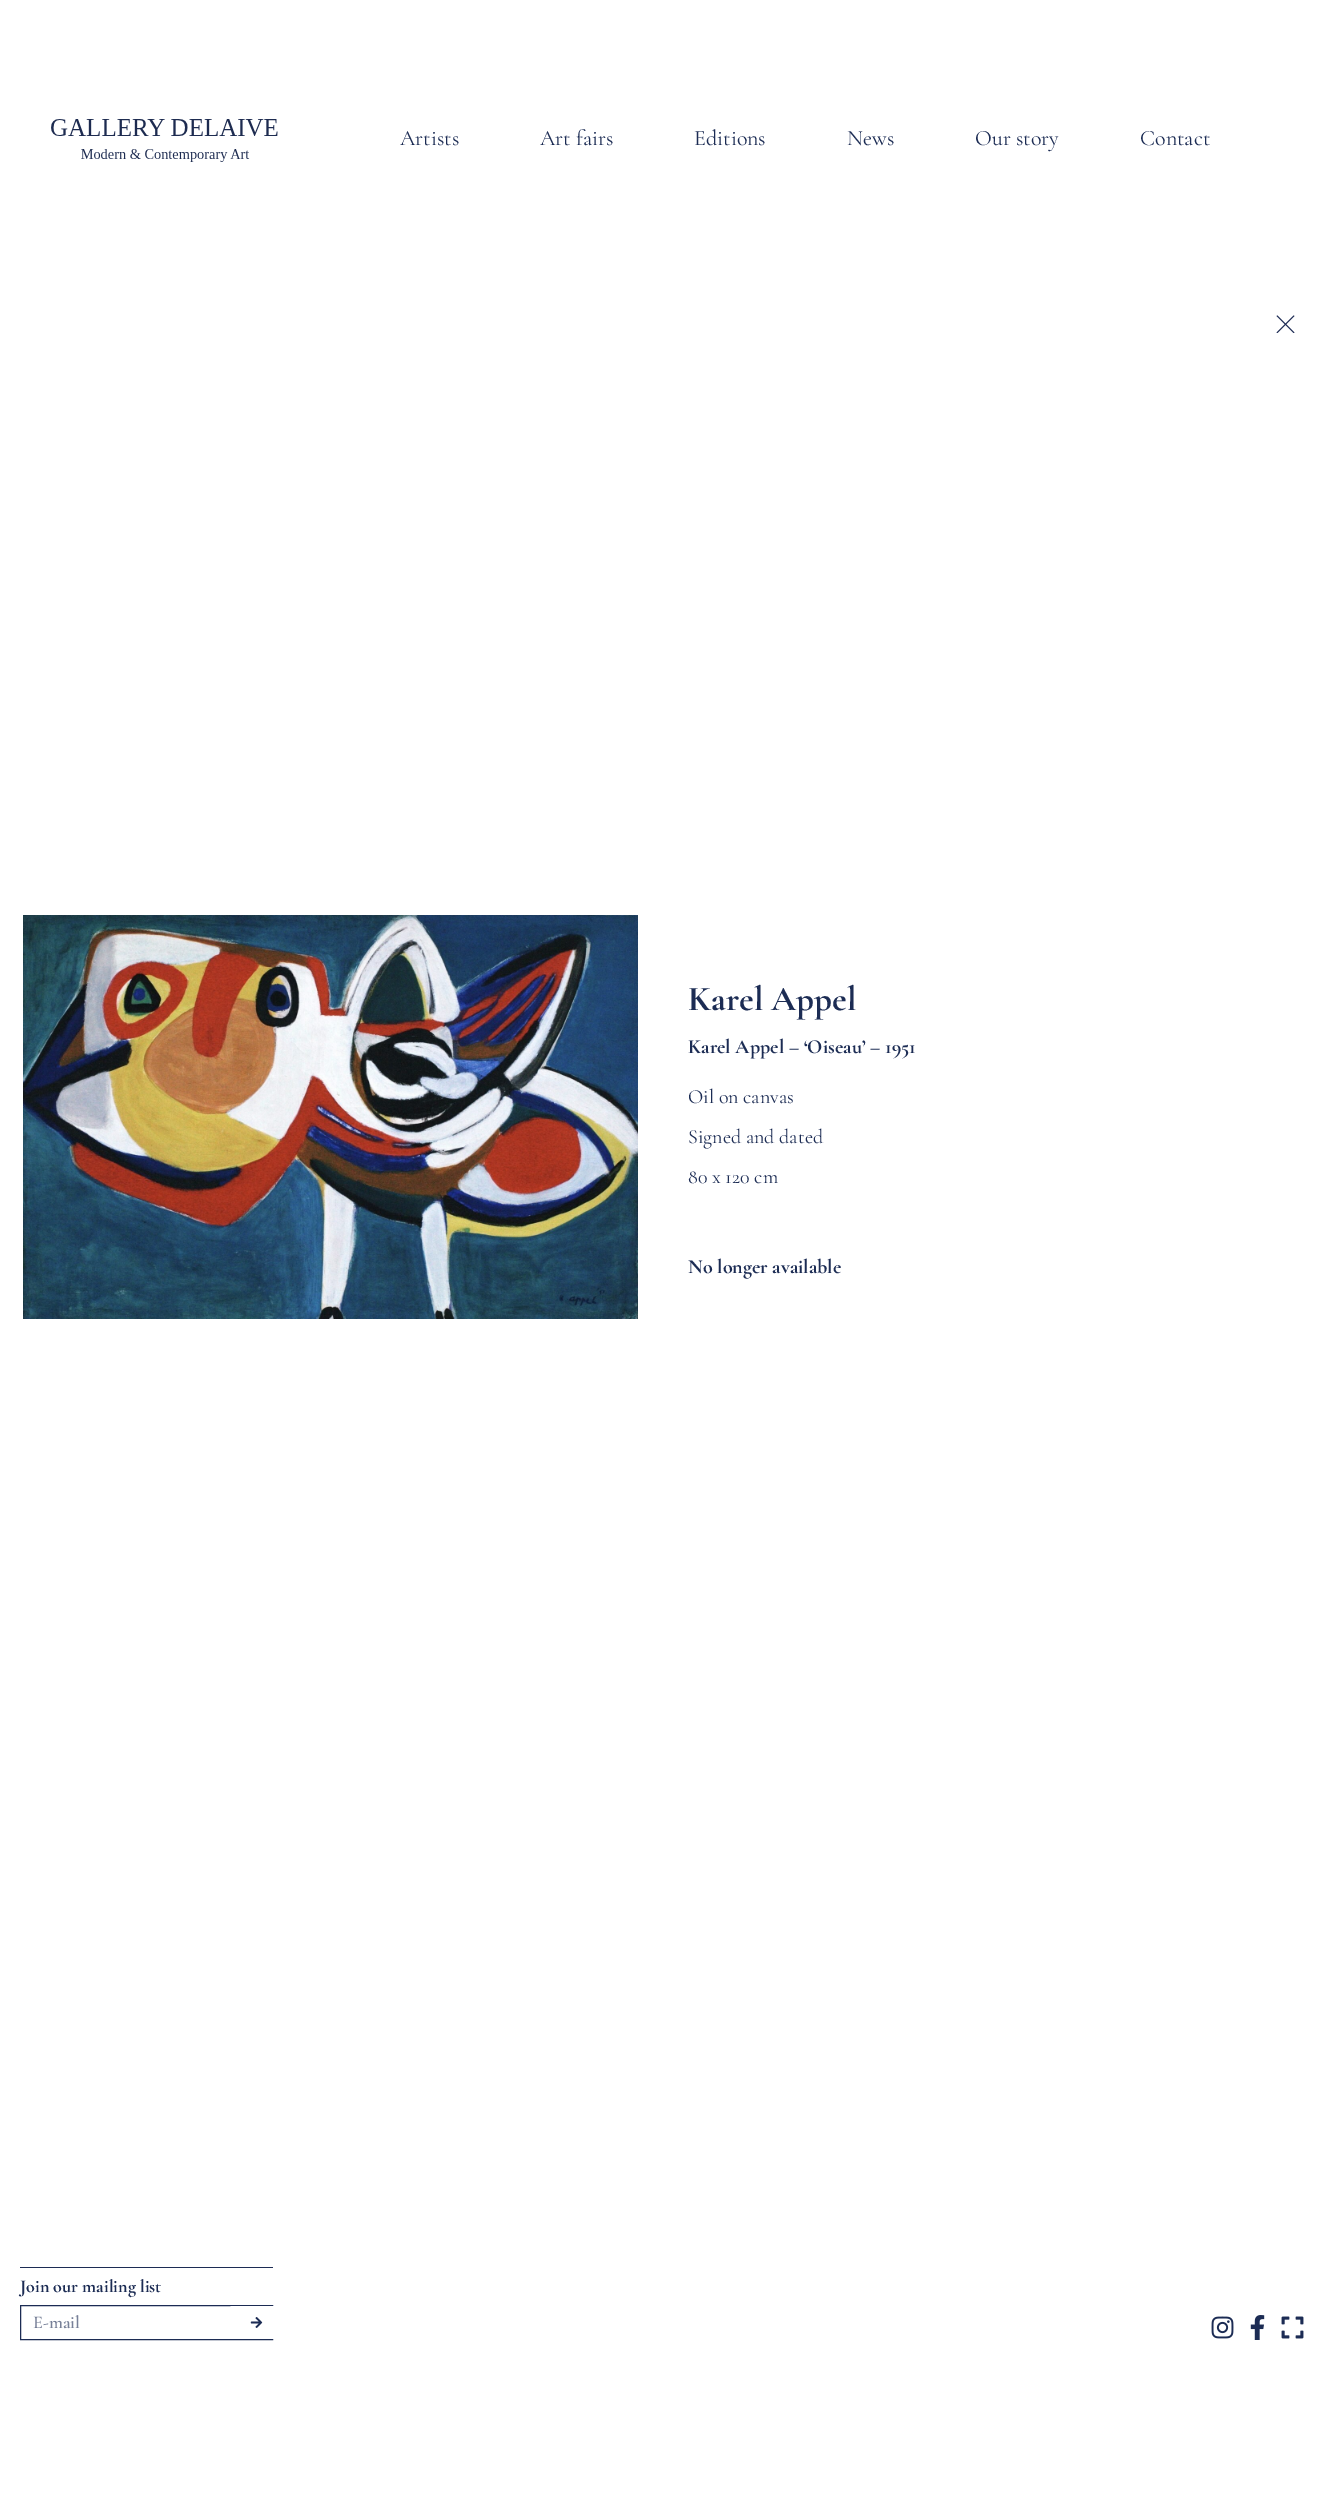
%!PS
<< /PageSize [1325 2511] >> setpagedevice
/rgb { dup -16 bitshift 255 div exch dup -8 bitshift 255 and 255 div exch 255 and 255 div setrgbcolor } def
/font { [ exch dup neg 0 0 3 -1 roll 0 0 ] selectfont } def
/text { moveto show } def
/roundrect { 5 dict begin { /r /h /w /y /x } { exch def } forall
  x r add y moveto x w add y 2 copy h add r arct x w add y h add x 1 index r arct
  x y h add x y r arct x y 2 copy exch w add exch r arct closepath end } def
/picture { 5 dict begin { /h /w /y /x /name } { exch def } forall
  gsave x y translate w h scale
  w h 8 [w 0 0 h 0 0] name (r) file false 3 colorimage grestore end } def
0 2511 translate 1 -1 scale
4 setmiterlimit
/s1 { /CormorantGaramond-Regular 22 font 16#1C2C54 rgb } def
/s2 { /CormorantGaramond-Bold 35 font 16#1C2C54 rgb } def
/s3 { /CormorantGaramond-Bold 20 font 16#1C2C54 rgb } def
/s4 { /CormorantGaramond-Regular 20 font 16#1C2C54 rgb } def
/s5 { /CormorantGaramond-Bold 18 font 16#1C2C54 rgb } def
/s6 { /CormorantGaramond-SemiBold 18 font 16#778098 rgb } def
16#FFFFFF rgb
0 0 1325 2511 rectfill
(pic1.raw) 51 119 227 43 picture
s1
(Artists) 400 145 text
(Art fairs) 540 145 text
(Editions) 694 145 text
(News) 847 145 text
(Our story) 975 145 text
(Contact) 1140 145 text
(pic2.raw) 23 915 615 404 picture
16#1D2B54 rgb
1277.5 315.5 moveto 1294.5 332.5 lineto 1293.5 333 lineto 1276.5 316 lineto closepath fill
1276.5 332.5 moveto 1293.5 315.5 lineto 1294.5 316 lineto 1277.5 333 lineto closepath fill
s2
(Karel Appel) 688 1010 text
s3
(Karel Appel – ‘Oiseau’ – 1951) 688 1053 text
s4
(Oil on canvas) 688 1103 text
(Signed and dated) 688 1143 text
(80 x 120 cm) 688 1183 text
s3
(No longer available) 688 1273 text
20 2267 253 1 rectfill
s5
(Join our mailing list) 20 2292 text
20.5 2305.5 252 34 rectstroke
s6
(E-mail) 33 2328 text
16#FFFFFF rgb
230 2306 53 33 2 roundrect fill
(pic3.raw) 250 2317 13 11 picture
(pic4.raw) 1211 2316 23 23 picture
(pic5.raw) 1250 2315 15 25 picture
(pic6.raw) 1281 2316 23 23 picture
showpage
